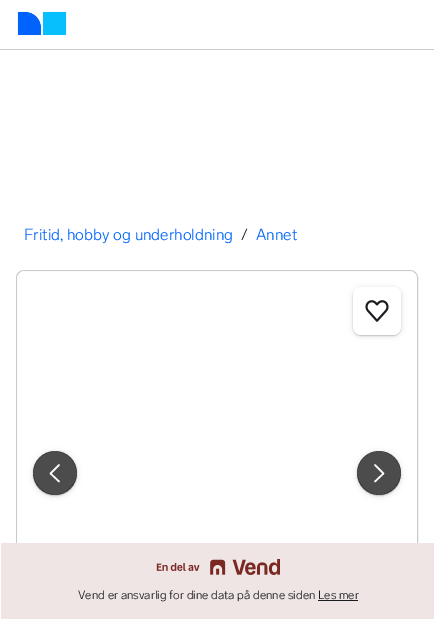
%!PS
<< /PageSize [434 619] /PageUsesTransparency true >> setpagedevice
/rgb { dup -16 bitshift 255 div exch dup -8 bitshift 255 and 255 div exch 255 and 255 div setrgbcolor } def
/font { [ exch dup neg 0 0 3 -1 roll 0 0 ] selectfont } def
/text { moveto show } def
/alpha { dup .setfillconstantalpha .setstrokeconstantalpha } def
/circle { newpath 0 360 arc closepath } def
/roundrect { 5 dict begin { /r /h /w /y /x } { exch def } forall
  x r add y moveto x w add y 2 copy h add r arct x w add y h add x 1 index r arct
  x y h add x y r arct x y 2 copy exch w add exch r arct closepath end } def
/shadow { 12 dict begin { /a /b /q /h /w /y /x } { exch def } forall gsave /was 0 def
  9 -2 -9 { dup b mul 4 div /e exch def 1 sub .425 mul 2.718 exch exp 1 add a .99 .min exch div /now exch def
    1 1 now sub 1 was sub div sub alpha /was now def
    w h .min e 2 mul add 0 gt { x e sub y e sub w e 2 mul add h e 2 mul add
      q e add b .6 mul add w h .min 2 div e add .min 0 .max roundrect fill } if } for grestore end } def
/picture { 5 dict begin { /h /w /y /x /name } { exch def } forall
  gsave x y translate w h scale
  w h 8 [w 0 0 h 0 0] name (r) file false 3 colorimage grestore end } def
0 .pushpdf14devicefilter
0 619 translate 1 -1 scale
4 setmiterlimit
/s1 { /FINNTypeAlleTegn-Light 16 font 16#0063FB rgb } def
/s2 { /FINNTypeAlleTegn-Light 16 font 16#1B1B1F rgb } def
/s3 { /FINNTypeAlleTegn-Light 12 font 16#1B1B1F rgb } def
16#FFFFFF rgb
0 0 434 619 rectfill
16#CACAD1 rgb
0 49 434 1 rectfill
(pic1.raw) 17 11 50 25 picture
s1
(Fritid, hobby og underholdning) 24 240 text
s2
(/) 241 240 text
s1
(Annet) 256 240 text
16#CACAD1 rgb
16.5 270.5 401 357 7.5 roundrect stroke
gsave
17 271 400 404 7 roundrect clip newpath
0.7 alpha
16#FFFFFF rgb
17 271 400 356 8 roundrect fill
grestore
16#000000 rgb
353 288 48 48 8 0.5 0.16 shadow
353 288 48 48 8 3 0.12 shadow
16#FFFFFF rgb
353 287 48 48 8 roundrect fill
(pic2.raw) 365 300 24 22 picture
gsave
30 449 moveto 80 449 lineto 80 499 lineto 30 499 lineto closepath 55 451 moveto 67 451 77 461 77 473 curveto 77 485 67 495 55 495 curveto 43 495 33 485 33 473 curveto 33 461 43 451 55 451 curveto closepath eoclip newpath
16#000000 rgb
33 452 44 44 22 0.5 0.16 shadow
grestore
gsave
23 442 moveto 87 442 lineto 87 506 lineto 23 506 lineto closepath 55 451 moveto 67 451 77 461 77 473 curveto 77 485 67 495 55 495 curveto 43 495 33 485 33 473 curveto 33 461 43 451 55 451 curveto closepath eoclip newpath
16#000000 rgb
33 452 44 44 22 3 0.12 shadow
grestore
0.7 alpha
16#000000 rgb
55 473 22 circle fill
1 alpha
16#FFFFFF rgb
1.5 setlinewidth
1 setlinecap
1 setlinejoin
59 481.5 moveto 50.5 473.5 lineto 59 465 lineto stroke
gsave
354 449 moveto 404 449 lineto 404 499 lineto 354 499 lineto closepath 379 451 moveto 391 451 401 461 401 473 curveto 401 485 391 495 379 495 curveto 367 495 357 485 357 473 curveto 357 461 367 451 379 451 curveto closepath eoclip newpath
16#000000 rgb
357 452 44 44 22 0.5 0.16 shadow
grestore
gsave
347 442 moveto 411 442 lineto 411 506 lineto 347 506 lineto closepath 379 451 moveto 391 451 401 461 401 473 curveto 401 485 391 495 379 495 curveto 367 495 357 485 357 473 curveto 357 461 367 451 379 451 curveto closepath eoclip newpath
16#000000 rgb
357 452 44 44 22 3 0.12 shadow
grestore
0.7 alpha
16#000000 rgb
379 473 22 circle fill
1 alpha
16#FFFFFF rgb
375 481.5 moveto 383.5 473.5 lineto 375 465 lineto stroke
16#EFE5E5 rgb
1 543 433 76 rectfill
(pic3.raw) 156 559 124 16 picture
s3
(Vend er ansvarlig for dine data på denne siden Les mer) 78 599 text
318 600 40 1 rectfill
.poppdf14devicefilter showpage
